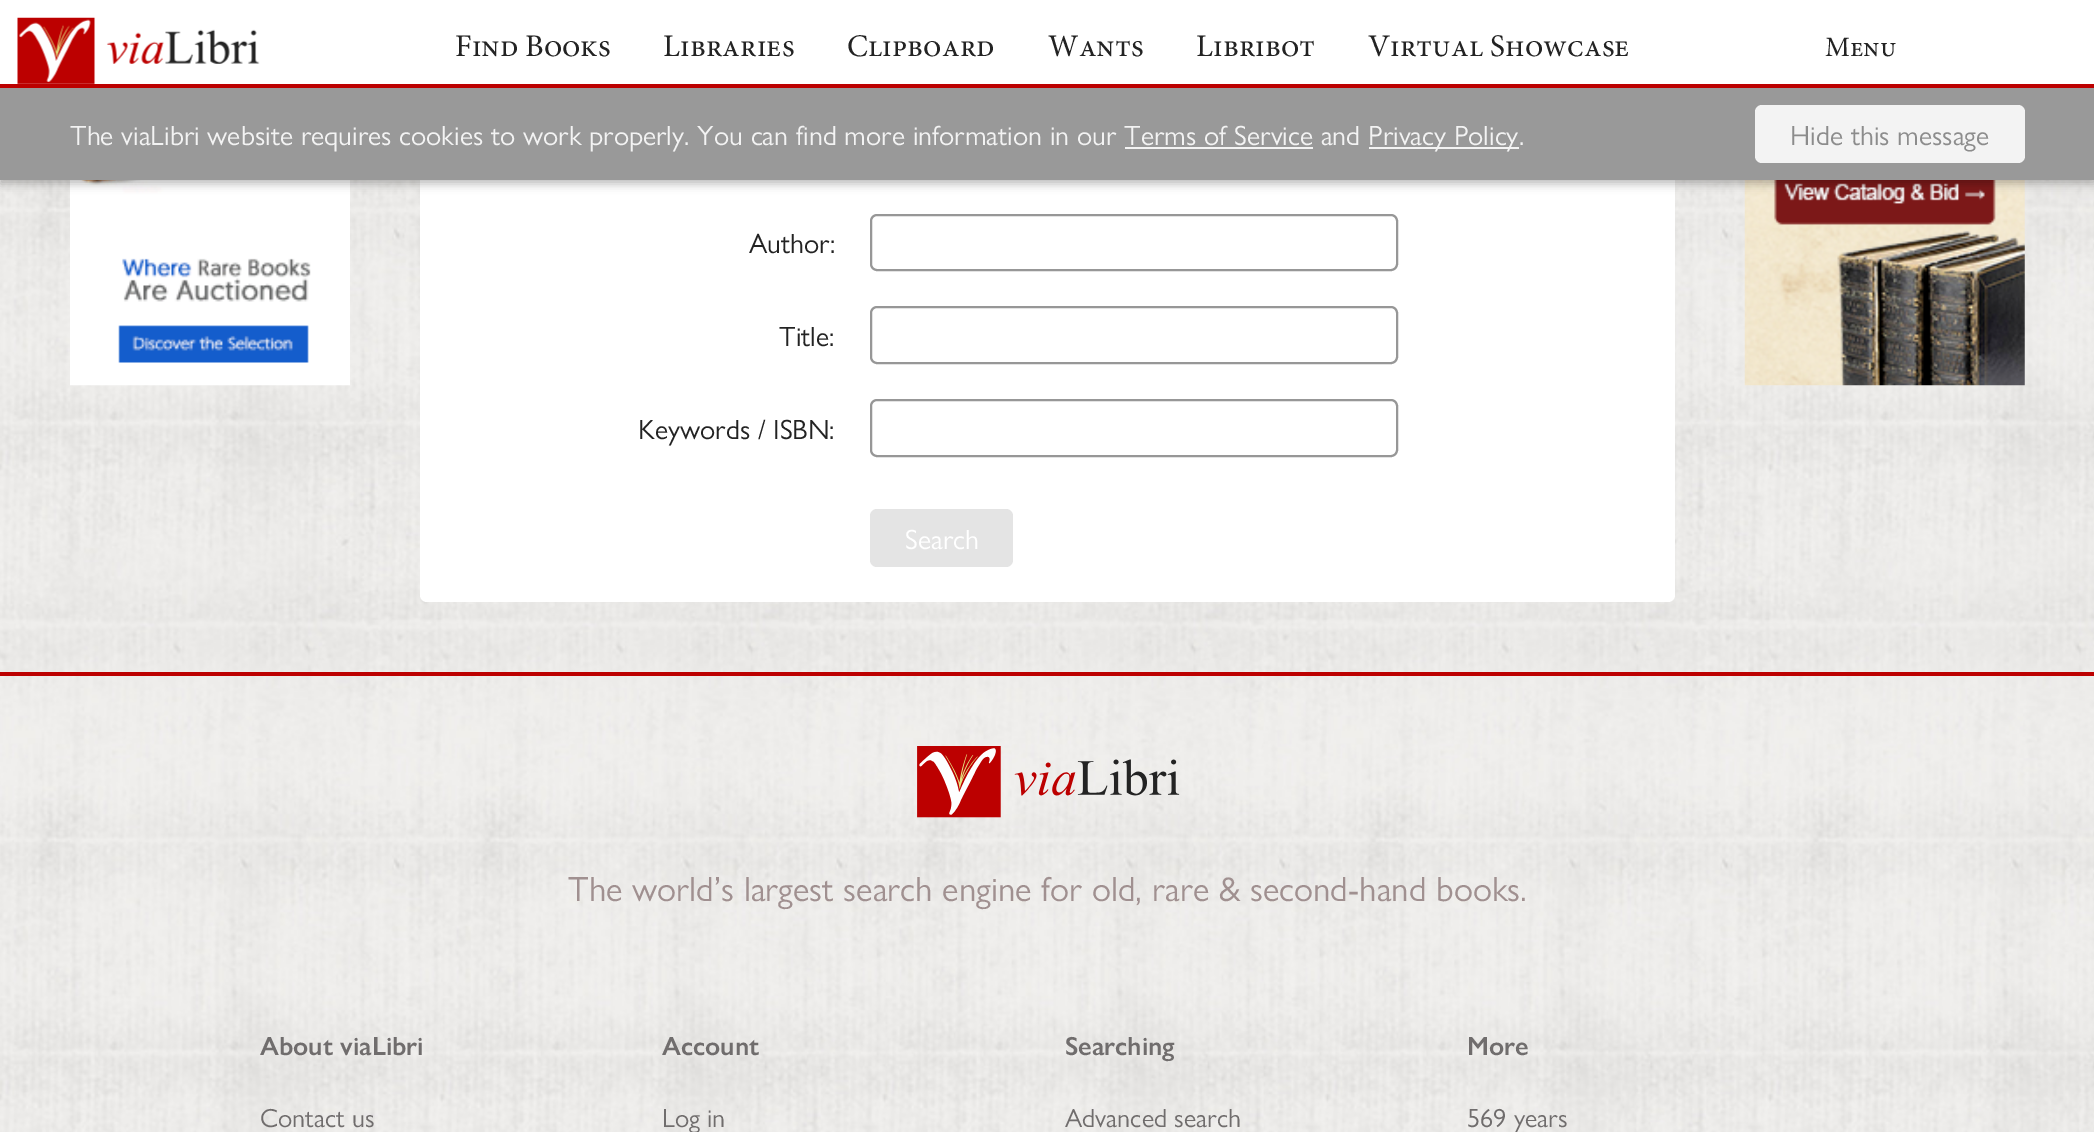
%!PS
<< /PageSize [2094 1132] /PageUsesTransparency true >> setpagedevice
/rgb { dup -16 bitshift 255 div exch dup -8 bitshift 255 and 255 div exch 255 and 255 div setrgbcolor } def
/font { [ exch dup neg 0 0 3 -1 roll 0 0 ] selectfont } def
/text { moveto show } def
/alpha { dup .setfillconstantalpha .setstrokeconstantalpha } def
/roundrect { 5 dict begin { /r /h /w /y /x } { exch def } forall
  x r add y moveto x w add y 2 copy h add r arct x w add y h add x 1 index r arct
  x y h add x y r arct x y 2 copy exch w add exch r arct closepath end } def
/shadow { 12 dict begin { /a /b /q /h /w /y /x } { exch def } forall gsave /was 0 def
  9 -2 -9 { dup b mul 4 div /e exch def 1 sub .425 mul 2.718 exch exp 1 add a .99 .min exch div /now exch def
    1 1 now sub 1 was sub div sub alpha /was now def
    w h .min e 2 mul add 0 gt { x e sub y e sub w e 2 mul add h e 2 mul add
      q e add b .6 mul add w h .min 2 div e add .min 0 .max roundrect fill } if } for grestore end } def
/picture { 5 dict begin { /h /w /y /x /name } { exch def } forall
  gsave x y translate w h scale
  w h 8 [w 0 0 h 0 0] name (r) file false 3 colorimage grestore end } def
0 .pushpdf14devicefilter
0 1132 translate 1 -1 scale
4 setmiterlimit
/s1 { /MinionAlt-Regular 31.5 font 16#232323 rgb } def
/s2 { /MinionAlt-Regular 28 font 16#232323 rgb } def
/s3 { /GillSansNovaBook-Regular 28 font 16#F3F3F3 rgb } def
/s4 { /GillSansNovaBook-Regular 28 font 16#8C8C8C rgb } def
/s5 { /GillSansNovaBook-Regular 28 font 16#232323 rgb } def
/s6 { /GillSansNovaBook-Regular 28 font 16#FFFFFF rgb } def
/s7 { /GillSansNovaBook-Regular 35 font 16#A09090 rgb } def
/s8 { /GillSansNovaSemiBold-SemiBold 26.25 font 16#706D6D rgb } def
/s9 { /GillSansNovaBook-Regular 26.25 font 16#706D6D rgb } def
16#FFFFFF rgb
0 0 2094 1132 rectfill
(pic1.raw) 0 180 2094 952 picture
(pic3.raw) 70 180 280 206 picture
420 98 1255 504 7 roundrect fill
(pic4.raw) 1744 180 281 206 picture
16#000000 rgb
0 4 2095 180 0 4.5 0.25 shadow
16#FFFFFF rgb
0 0 2094 84 rectfill
16#BC0000 rgb
0 84 2094 4 rectfill
(pic2.raw) 17 17 243 67 picture
s1
(Find Books) 455 56 text
(Libraries) 663 56 text
(Clipboard) 847 56 text
(Wants) 1048 56 text
(Libribot) 1196 56 text
(Virtual Showcase) 1368 56 text
s2
(Menu) 1825 56 text
16#999999 rgb
0 88 2094 92 rectfill
s3
(The viaLibri website requires cookies to work properly. You can find more information in our Terms of Service and) 70 145 text
1125 147 188 2 rectfill
1369 147 150 2 rectfill
(Privacy Policy.) 1368 145 text
1755 105 270 58 7 roundrect fill
s4
(Hide this message) 1790 145 text
s5
(Author:) 749 253 text
16#979797 rgb
2 setlinewidth
871 215 526 55 6 roundrect stroke
s5
(Title:) 779 346 text
16#979797 rgb
871 307 526 56 6 roundrect stroke
s5
(Keywords / ISBN:) 638 439 text
16#979797 rgb
871 400 526 56 6 roundrect stroke
16#E4E4E4 rgb
870 509 143 58 7 roundrect fill
s6
(Search) 905 549 text
16#BC0000 rgb
0 672 2094 4 rectfill
(pic5.raw) 917 746 263 72 picture
s7
(The world’s largest search engine for old, rare & second-hand books.) 568 901 text
s8
(About viaLibri) 260 1055 text
s9
(Contact us) 260 1127 text
s8
(Account) 662 1055 text
s9
(Log in) 662 1127 text
s8
(Searching) 1065 1055 text
s9
(Advanced search) 1065 1127 text
s8
(More) 1467 1055 text
s9
(569 years) 1467 1127 text
.poppdf14devicefilter showpage
